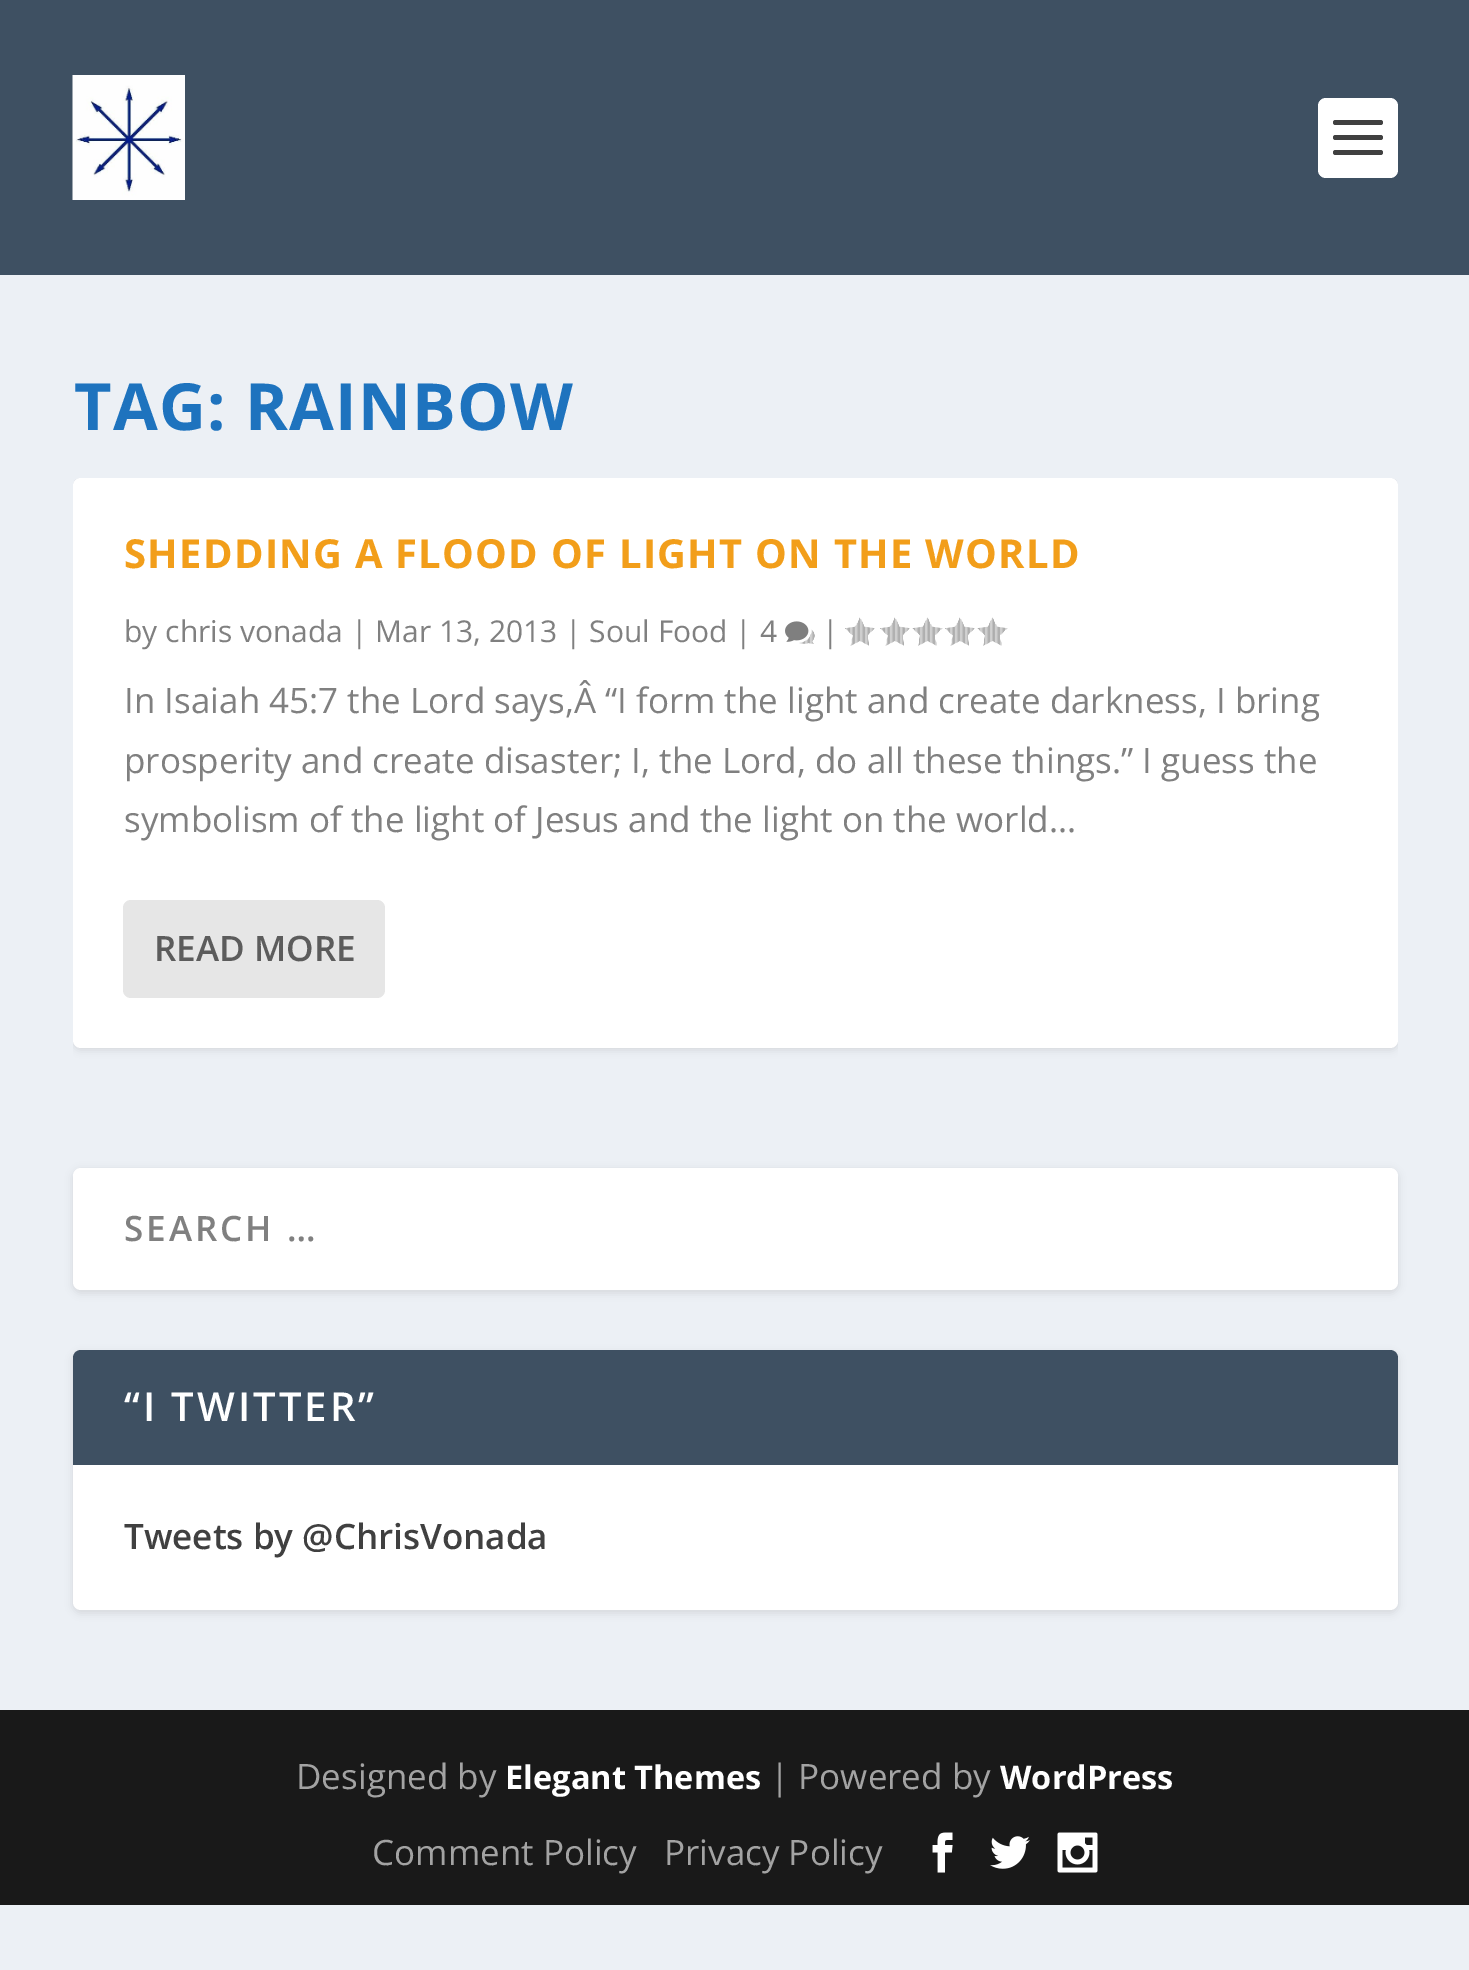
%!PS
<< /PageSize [1469 1970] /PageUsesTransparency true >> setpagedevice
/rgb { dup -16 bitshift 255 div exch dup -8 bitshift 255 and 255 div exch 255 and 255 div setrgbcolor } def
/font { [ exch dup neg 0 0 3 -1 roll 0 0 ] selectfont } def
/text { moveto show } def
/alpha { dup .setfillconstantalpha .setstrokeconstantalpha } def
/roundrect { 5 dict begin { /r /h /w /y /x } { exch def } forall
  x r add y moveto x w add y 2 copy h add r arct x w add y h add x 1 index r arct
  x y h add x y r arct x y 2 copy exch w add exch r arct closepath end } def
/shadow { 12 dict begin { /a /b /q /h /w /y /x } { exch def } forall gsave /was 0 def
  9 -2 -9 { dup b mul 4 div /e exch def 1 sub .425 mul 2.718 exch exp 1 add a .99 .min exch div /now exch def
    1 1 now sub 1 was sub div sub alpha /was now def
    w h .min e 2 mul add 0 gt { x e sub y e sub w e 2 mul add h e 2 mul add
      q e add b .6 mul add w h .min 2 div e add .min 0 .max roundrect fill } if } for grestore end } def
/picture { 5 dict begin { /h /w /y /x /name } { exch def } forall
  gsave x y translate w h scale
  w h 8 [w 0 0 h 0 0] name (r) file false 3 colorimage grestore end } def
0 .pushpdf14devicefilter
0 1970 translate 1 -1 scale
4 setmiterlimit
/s1 { /OpenSans-Regular 30 font 16#808080 rgb } def
/s2 { /OpenSans-Regular 35 font 16#808080 rgb } def
/s3 { /OpenSans-SemiBold 35 font 16#5C5C5C rgb } def
/s4 { /OpenSans-SemiBold 35 font 16#404040 rgb } def
/s5 { /OpenSans-Regular 35 font 16#A3A3A3 rgb } def
/s6 { /OpenSans-Bold 32.5 font 16#FFFFFF rgb } def
16#ECF0F5 rgb
0 0 1469 1970 rectfill
16#3E5062 rgb
0 0 1469 275 rectfill
(pic1.raw) 72 75 113 125 picture
16#FFFFFF rgb
1318 98 80 80 8 roundrect fill
16#404040 rgb
1333 120 50 5 2.5 roundrect fill
1333 135 50 5 2.5 roundrect fill
1333 150 50 5 2.5 roundrect fill
/OpenSans-Bold 65 font
16#1E73BE rgb
74 430 moveto 1.25 0 (TAG: RAINBOW) ashow
gsave
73 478 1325 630 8 roundrect clip newpath
16#000000 rgb
73 480 1325 570 8 4 0.1 shadow
grestore
16#FFFFFF rgb
73 478 1325 570 8 roundrect fill
/OpenSans-Bold 40 font
16#F29E1A rgb
124 568 moveto 1.25 0 (SHEDDING A FLOOD OF LIGHT ON THE WORLD) ashow
s1
(by chris vonada | Mar 13, 2013 | Soul Food | 4) 124 642 text
(pic2.raw) 785 621 30 23 picture
(|) 822 642 text
(pic3.raw) 845 617 30 29 picture
(pic3.raw) 880 617 30 29 picture
(pic4.raw) 912 617 31 29 picture
(pic3.raw) 945 617 30 29 picture
(pic4.raw) 977 617 31 29 picture
s2
(In Isaiah 45:7 the Lord says,Â “I form the light and create darkness, I bring) 124 713 text
(prosperity and create disaster; I, the Lord, do all these things.” I guess the) 124 773 text
(symbolism of the light of Jesus and the light on the world...) 124 832 text
16#E6E6E6 rgb
123 900 262 98 8 roundrect fill
s3
(READ MORE) 154 961 text
16#000000 rgb
73 1170 1325 123 8 4 0.1 shadow
16#FFFFFF rgb
73 1168 1325 122 8 roundrect fill
16#808080 rgb
124 1241 moveto 3 0 (SEARCH …) ashow
16#000000 rgb
73 1353 1325 260 8 4 0.1 shadow
16#FFFFFF rgb
73 1350 1325 260 8 roundrect fill
16#3E5062 rgb
81 1350 moveto 1390 1350 lineto 1394.5 1350 1398 1353.5 1398 1358 curveto 1398 1465 lineto 73 1465 lineto 73 1358 lineto 73 1353.5 76.5 1350 81 1350 curveto closepath fill
/OpenSans-SemiBold 40 font
16#FFFFFF rgb
124 1421 moveto 3 0 (“I TWITTER”) ashow
s4
(Tweets by @ChrisVonada) 124 1549 text
16#191919 rgb
0 1710 1469 195 rectfill
s5
(Designed by) 296 1789 text
s6
(Elegant Themes) 505 1789 text
s5
(| Powered by) 770 1789 text
s6
(WordPress) 1000 1789 text
s5
(Comment Policy) 372 1865 text
(Privacy Policy) 664 1865 text
(pic5.raw) 932 1832 21 41 picture
(pic6.raw) 990 1836 40 33 picture
(pic7.raw) 1057 1832 41 41 picture
.poppdf14devicefilter showpage
